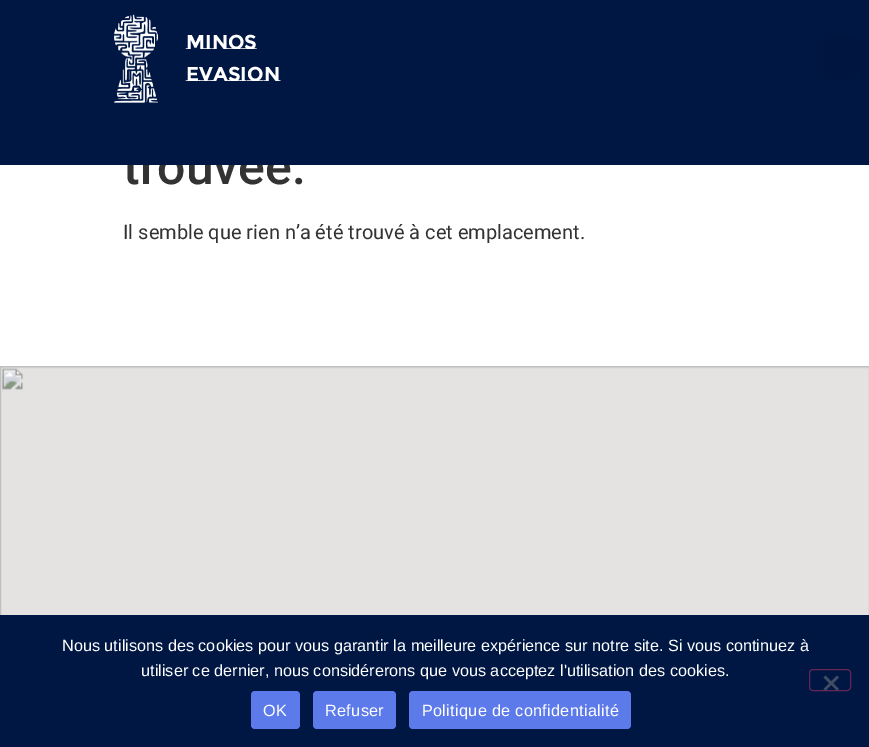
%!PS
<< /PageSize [869 747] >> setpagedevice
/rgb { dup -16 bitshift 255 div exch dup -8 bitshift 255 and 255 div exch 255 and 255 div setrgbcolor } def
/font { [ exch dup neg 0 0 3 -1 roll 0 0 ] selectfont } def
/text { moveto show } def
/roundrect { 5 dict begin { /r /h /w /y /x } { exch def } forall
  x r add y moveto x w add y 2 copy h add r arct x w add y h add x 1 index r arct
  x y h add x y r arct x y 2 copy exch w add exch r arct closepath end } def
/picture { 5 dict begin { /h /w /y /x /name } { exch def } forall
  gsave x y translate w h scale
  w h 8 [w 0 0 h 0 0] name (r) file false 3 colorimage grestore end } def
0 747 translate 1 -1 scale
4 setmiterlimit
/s1 { /Roboto-Medium 50 font 16#333333 rgb } def
/s2 { /MontserratSubrayada-Bold 20 font 16#FFFFFF rgb } def
/s3 { /Roboto-Regular 20 font 16#333333 rgb } def
/s4 { /LiberationSans-Regular 16.25 font 16#FFFFFF rgb } def
16#FFFFFF rgb
0 0 869 747 rectfill
s1
(trouvée.) 123 184 text
16#001744 rgb
0 0 869 165 rectfill
(pic1.raw) 114 14 44 89 picture
s2
(Minos) 186 49 text
(evasion) 186 81 text
16#001641 rgb
823 38 35 41 4 roundrect fill
s3
(Il semble que rien n’a été trouvé à cet emplacement.) 123 239 text
(pic2.raw) 0 366 869 249 picture
16#001744 rgb
0 615 869 132 rectfill
s4
(Nous utilisons des cookies pour vous garantir la meilleure expérience sur notre site. Si vous continuez à) 62 651 text
(utiliser ce dernier, nous considérerons que vous acceptez l'utilisation des cookies.) 141 676 text
16#662555 rgb
809.5 669.5 41 21 3.5 roundrect stroke
16#404C62 rgb
837 675.5 moveto 839 677.5 lineto 825.5 690.5 lineto 823.5 689 lineto closepath fill
823.5 677.5 moveto 825.5 675.5 lineto 839 689 lineto 837 690.5 lineto closepath fill
16#5C7AEA rgb
251 691 49 38 4 roundrect fill
16#FFFFFF rgb
263 716 moveto 0.3 0 (OK) ashow
16#5C7AEA rgb
313 691 83 38 4 roundrect fill
16#FFFFFF rgb
325 716 moveto 0.3 0 (Refuser) ashow
16#5C7AEA rgb
409 691 222 38 4 roundrect fill
16#FFFFFF rgb
422 716 moveto 0.3 0 (Politique de confidentialité) ashow
showpage
